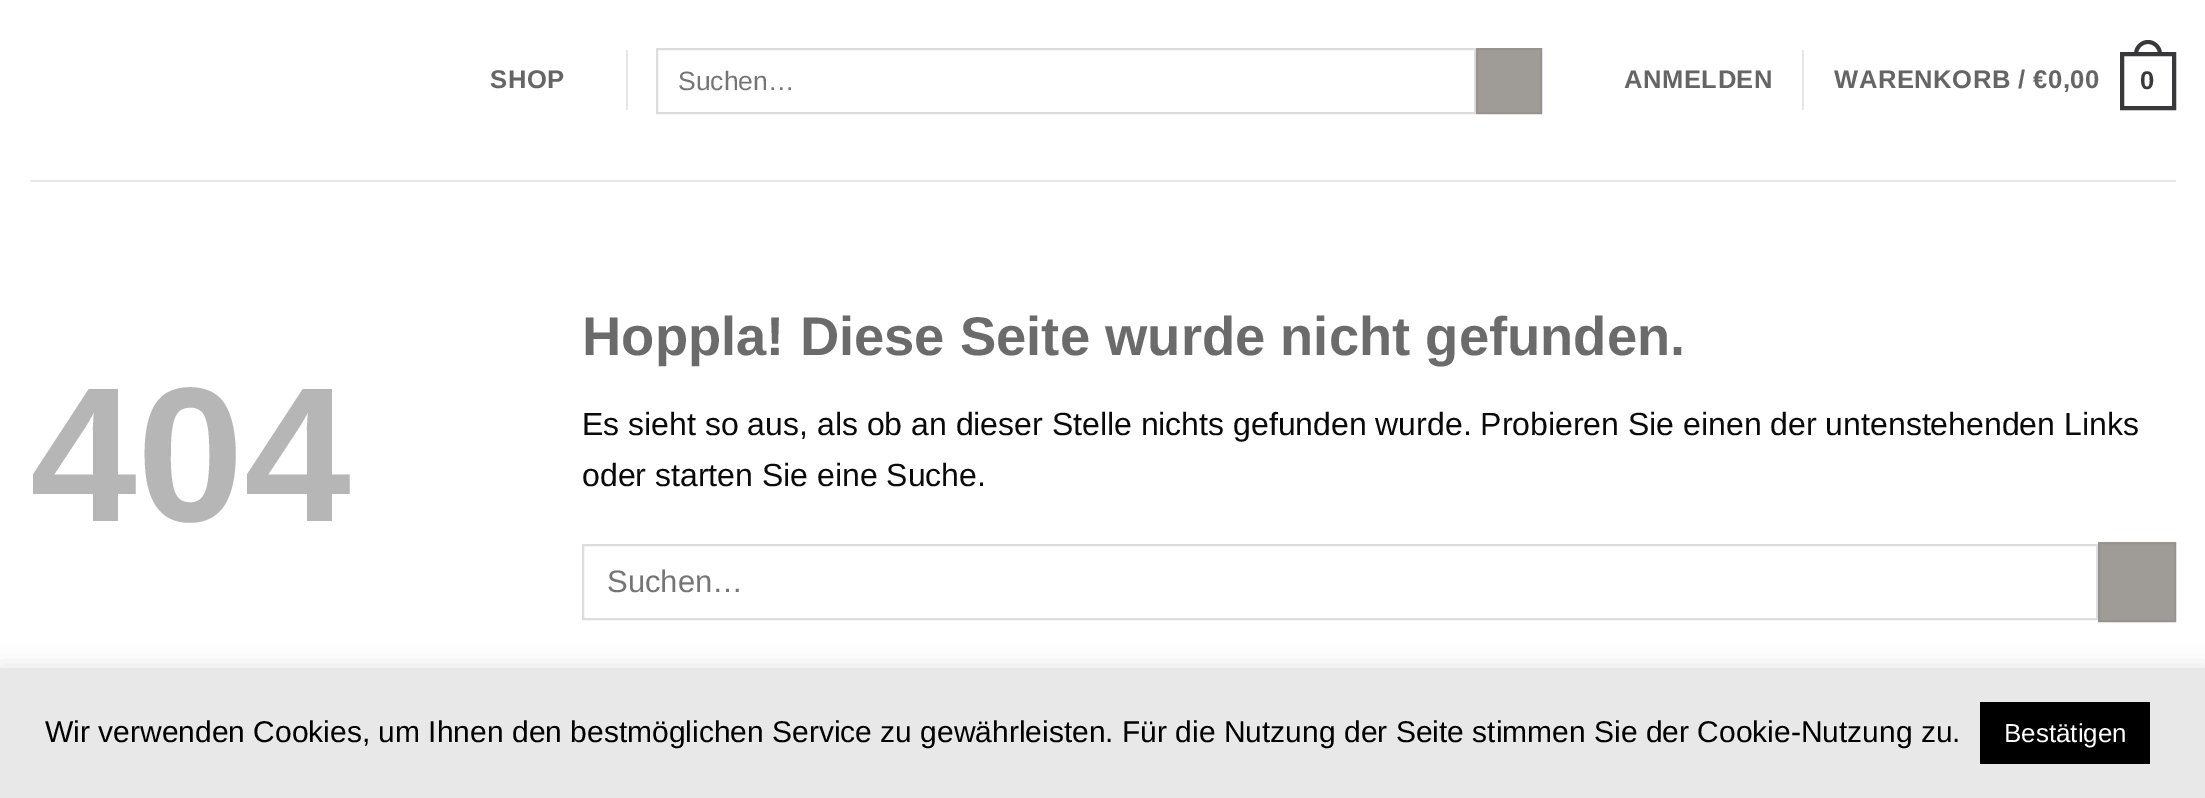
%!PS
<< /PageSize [2205 798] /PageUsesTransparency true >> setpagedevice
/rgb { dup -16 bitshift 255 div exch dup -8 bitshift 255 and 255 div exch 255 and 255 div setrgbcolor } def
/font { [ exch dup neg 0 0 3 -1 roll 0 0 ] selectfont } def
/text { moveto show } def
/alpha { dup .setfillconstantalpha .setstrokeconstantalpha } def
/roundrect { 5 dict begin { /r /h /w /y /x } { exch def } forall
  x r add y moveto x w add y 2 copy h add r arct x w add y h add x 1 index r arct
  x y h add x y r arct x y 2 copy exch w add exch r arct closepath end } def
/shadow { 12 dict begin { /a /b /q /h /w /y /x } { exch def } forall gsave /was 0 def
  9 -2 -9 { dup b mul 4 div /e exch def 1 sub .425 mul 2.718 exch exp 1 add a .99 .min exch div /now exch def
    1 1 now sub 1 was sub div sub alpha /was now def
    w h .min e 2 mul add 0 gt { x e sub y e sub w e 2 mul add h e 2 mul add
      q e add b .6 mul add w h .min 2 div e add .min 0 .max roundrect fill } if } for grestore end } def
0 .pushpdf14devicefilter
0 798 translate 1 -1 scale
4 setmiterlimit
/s1 { /LiberationSans-Regular 26.5 font 16#757575 rgb } def
/s2 { /LiberationSans-Bold 192 font 16#B6B6B6 rgb } def
/s3 { /LiberationSans-Bold 54.4 font 16#6B6B6B rgb } def
/s4 { /LiberationSans-Regular 32 font 16#0A0A0A rgb } def
/s5 { /LiberationSans-Regular 31 font 16#757575 rgb } def
/s6 { /LiberationSans-Regular 30 font 16#000000 rgb } def
/s7 { /LiberationSans-Regular 26 font 16#FFFFFF rgb } def
16#FFFFFF rgb
0 0 2205 798 rectfill
/LiberationSans-Bold 25.6 font
16#656565 rgb
490 88 moveto 0.5 0 (SHOP) ashow
16#E6E6E6 rgb
626 50 2 60 rectfill
16#DDDDDD rgb
2 setlinewidth
657 49 818 64 rectstroke
s1
(Suchen…) 678 90 text
16#9F9B97 rgb
1477 49 moveto 1541 49 lineto 1541 113 lineto 1477 113 lineto closepath gsave fill grestore
16#97938F rgb
stroke
/LiberationSans-Bold 25.6 font
16#656565 rgb
1624 88 moveto 0.5 0 (ANMELDEN) ashow
16#E6E6E6 rgb
1802 50 2 60 rectfill
16#656565 rgb
1834 88 moveto 0.5 0 (WARENKORB / €0,00) ashow
16#39393B rgb
4 setlinewidth
2122 54 52 54 rectstroke
2148 40 moveto 2155.5 40 2162 46.5 2162 54 curveto 2162 56 lineto 2134 56 lineto 2134 54 lineto 2134 46.5 2140.5 40 2148 40 curveto closepath 2148 44 moveto 2153.5 44 2158 48.5 2158 54 curveto 2158 56 lineto 2138 56 lineto 2138 54 lineto 2138 48.5 2142.5 44 2148 44 curveto closepath eofill
2140 89 moveto 0.5 0 (0) ashow
16#E7E7E7 rgb
30 180 2146 2 rectfill
s2
(404) 30 521 text
s3
(Hoppla! Diese Seite wurde nicht gefunden.) 582 355 text
s4
(Es sieht so aus, als ob an dieser Stelle nichts gefunden wurde. Probieren Sie einen der untenstehenden Links) 582 435 text
(oder starten Sie eine Suche.) 582 486 text
16#DDDDDD rgb
2 setlinewidth
583 545 1514 74 rectstroke
s5
(Suchen…) 607 592 text
16#9F9B97 rgb
2099 543 moveto 2175 543 lineto 2175 621 lineto 2099 621 lineto closepath gsave fill grestore
16#97938F rgb
stroke
16#ACABAB rgb
0 666 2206 130 0 10 0.3 shadow
16#E8E8E8 rgb
0 668 2205 130 rectfill
s6
(Wir verwenden Cookies, um Ihnen den bestmöglichen Service zu gewährleisten. Für die Nutzung der Seite stimmen Sie der Cookie-Nutzung zu.) 45 742 text
1980 702 170 62 rectfill
s7
(Bestätigen) 2004 742 text
.poppdf14devicefilter showpage
